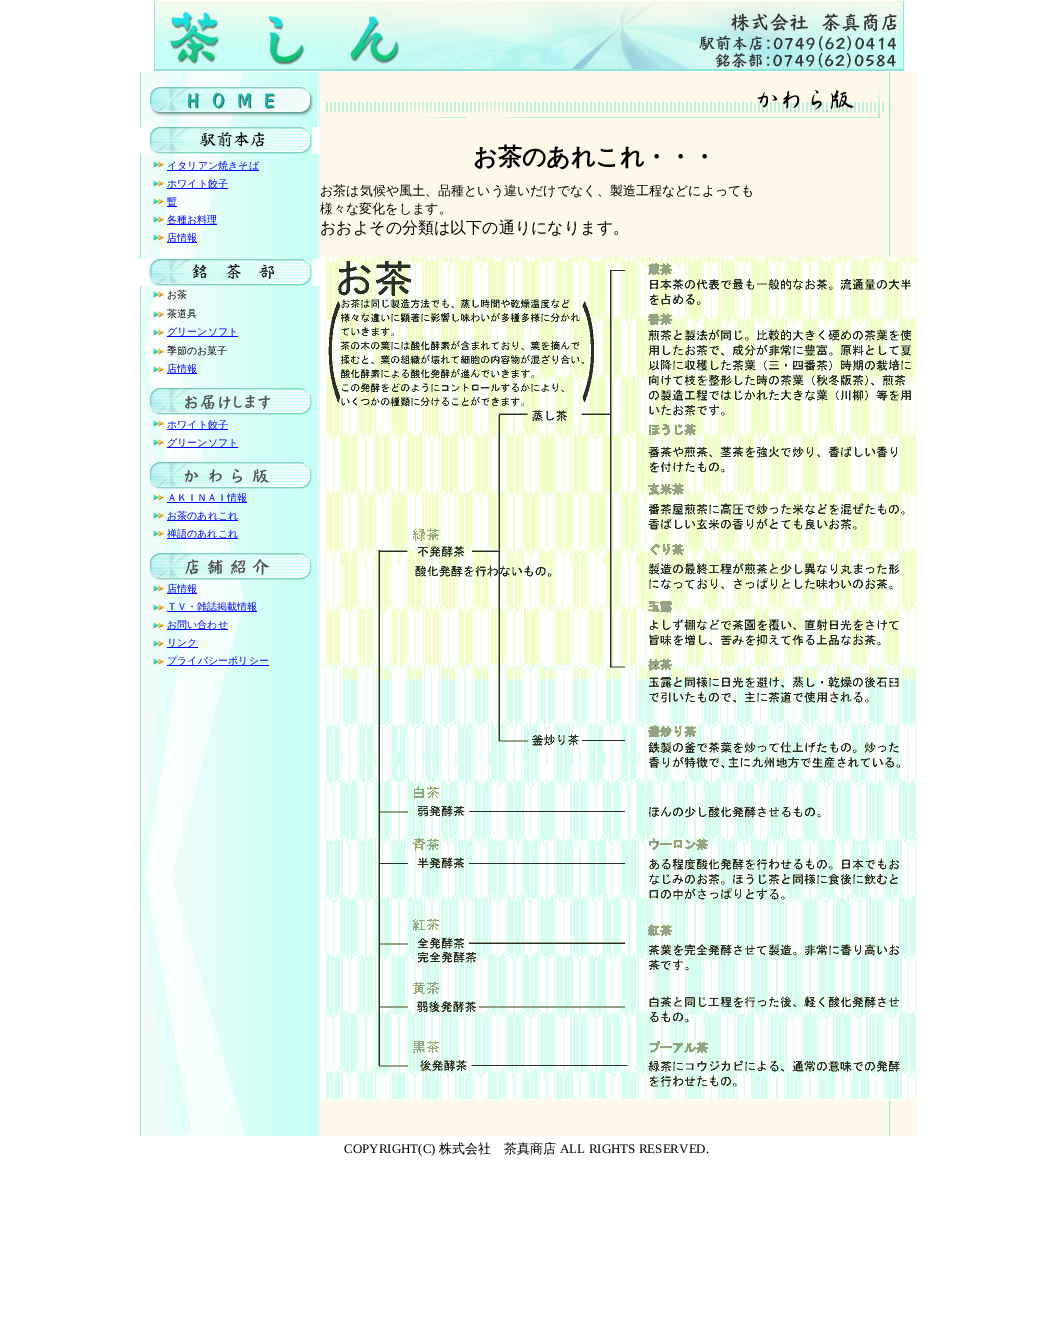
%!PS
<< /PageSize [1057 1339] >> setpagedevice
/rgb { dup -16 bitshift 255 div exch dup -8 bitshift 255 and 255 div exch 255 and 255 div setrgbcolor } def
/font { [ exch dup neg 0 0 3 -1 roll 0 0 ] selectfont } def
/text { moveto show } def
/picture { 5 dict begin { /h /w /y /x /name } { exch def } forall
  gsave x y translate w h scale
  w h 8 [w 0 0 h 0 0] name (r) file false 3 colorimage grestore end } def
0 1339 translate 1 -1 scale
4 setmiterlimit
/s1 { /WenQuanYiZenHei-Medium 10 font 16#0000FF rgb } def
/s2 { /WenQuanYiZenHei-Medium 10 font 16#000000 rgb } def
/s3 { /WenQuanYiZenHei-Bold 24 font 16#000000 rgb } def
/s4 { /WenQuanYiZenHei-Medium 13 font 16#000000 rgb } def
/s5 { /WenQuanYiZenHei-Medium 16 font 16#000000 rgb } def
/s6 { /LiberationSerif-Regular 13 font 16#000000 rgb } def
16#FFFFFF rgb
0 0 1057 1339 rectfill
(pic1.raw) 154 1 750 70 picture
(pic2.raw) 140 72 180 1064 picture
(pic3.raw) 150 72 164 45 picture
(pic4.raw) 140 127 180 27 picture
(pic5.raw) 153 161 11 7 picture
16#0000FF rgb
167 170 92 1 rectfill
s1
(イタリアン焼きそば) 167 169 text
(pic6.raw) 153 180 11 7 picture
167 188 61 1 rectfill
(ホワイト餃子) 167 187 text
(pic7.raw) 153 198 11 7 picture
167 206 10 1 rectfill
(暫) 167 205 text
(pic8.raw) 153 216 11 7 picture
167 224 50 1 rectfill
(各種お料理) 167 223 text
(pic9.raw) 153 234 11 7 picture
167 242 30 1 rectfill
(店情報) 167 241 text
(pic10.raw) 140 259 180 27 picture
(pic11.raw) 153 291 11 7 picture
s2
(お茶) 167 298 text
(pic11.raw) 153 311 11 7 picture
(茶道具) 167 317 text
(pic11.raw) 153 329 11 7 picture
16#0000FF rgb
167 336 71 1 rectfill
(グリーンソフト) 167 335 text
(pic11.raw) 153 348 11 7 picture
s2
(季節のお菓子) 167 354 text
(pic11.raw) 153 366 11 7 picture
16#0000FF rgb
167 373 30 1 rectfill
(店情報) 167 372 text
(pic12.raw) 149 388 163 27 picture
(pic13.raw) 153 420 11 7 picture
167 429 61 1 rectfill
(ホワイト餃子) 167 428 text
(pic14.raw) 153 439 11 7 picture
167 447 71 1 rectfill
(グリーンソフト) 167 446 text
(pic15.raw) 149 462 163 27 picture
(pic16.raw) 153 494 11 7 picture
167 502 80 1 rectfill
(ＡＫＩＮＡＩ情報) 167 501 text
(pic17.raw) 153 512 11 7 picture
167 520 71 1 rectfill
(お茶のあれこれ) 167 519 text
(pic18.raw) 153 530 11 7 picture
167 538 71 1 rectfill
(禅語のあれこれ) 167 537 text
(pic19.raw) 149 553 163 27 picture
(pic20.raw) 153 585 11 7 picture
167 593 30 1 rectfill
(店情報) 167 592 text
(pic20.raw) 153 604 11 7 picture
167 611 90 1 rectfill
(ＴＶ・雑誌掲載情報) 167 610 text
(pic20.raw) 153 622 11 7 picture
167 629 61 1 rectfill
(お問い合わせ) 167 628 text
(pic20.raw) 153 640 11 7 picture
167 647 31 1 rectfill
(リンク) 167 646 text
(pic21.raw) 153 658 11 7 picture
167 665 102 1 rectfill
(プライバシーポリシー) 167 664 text
(pic22.raw) 320 72 597 1064 picture
(pic23.raw) 326 87 558 31 picture
s3
(お茶のあれこれ・・・) 473 165 text
s4
(お茶は気候や風土、品種という違いだけでなく、製造工程などによっても) 320 195 text
(様々な変化をします。) 320 213 text
s5
(おおよその分類は以下の通りになります。) 320 233 text
(pic24.raw) 320 257 597 843 picture
s6
(COPYRIGHT\(C\)) 344 1153 text
s4
(株式会社　茶真商店) 439 1153 text
s6
(ALL RIGHTS RESERVED.) 560 1153 text
showpage
